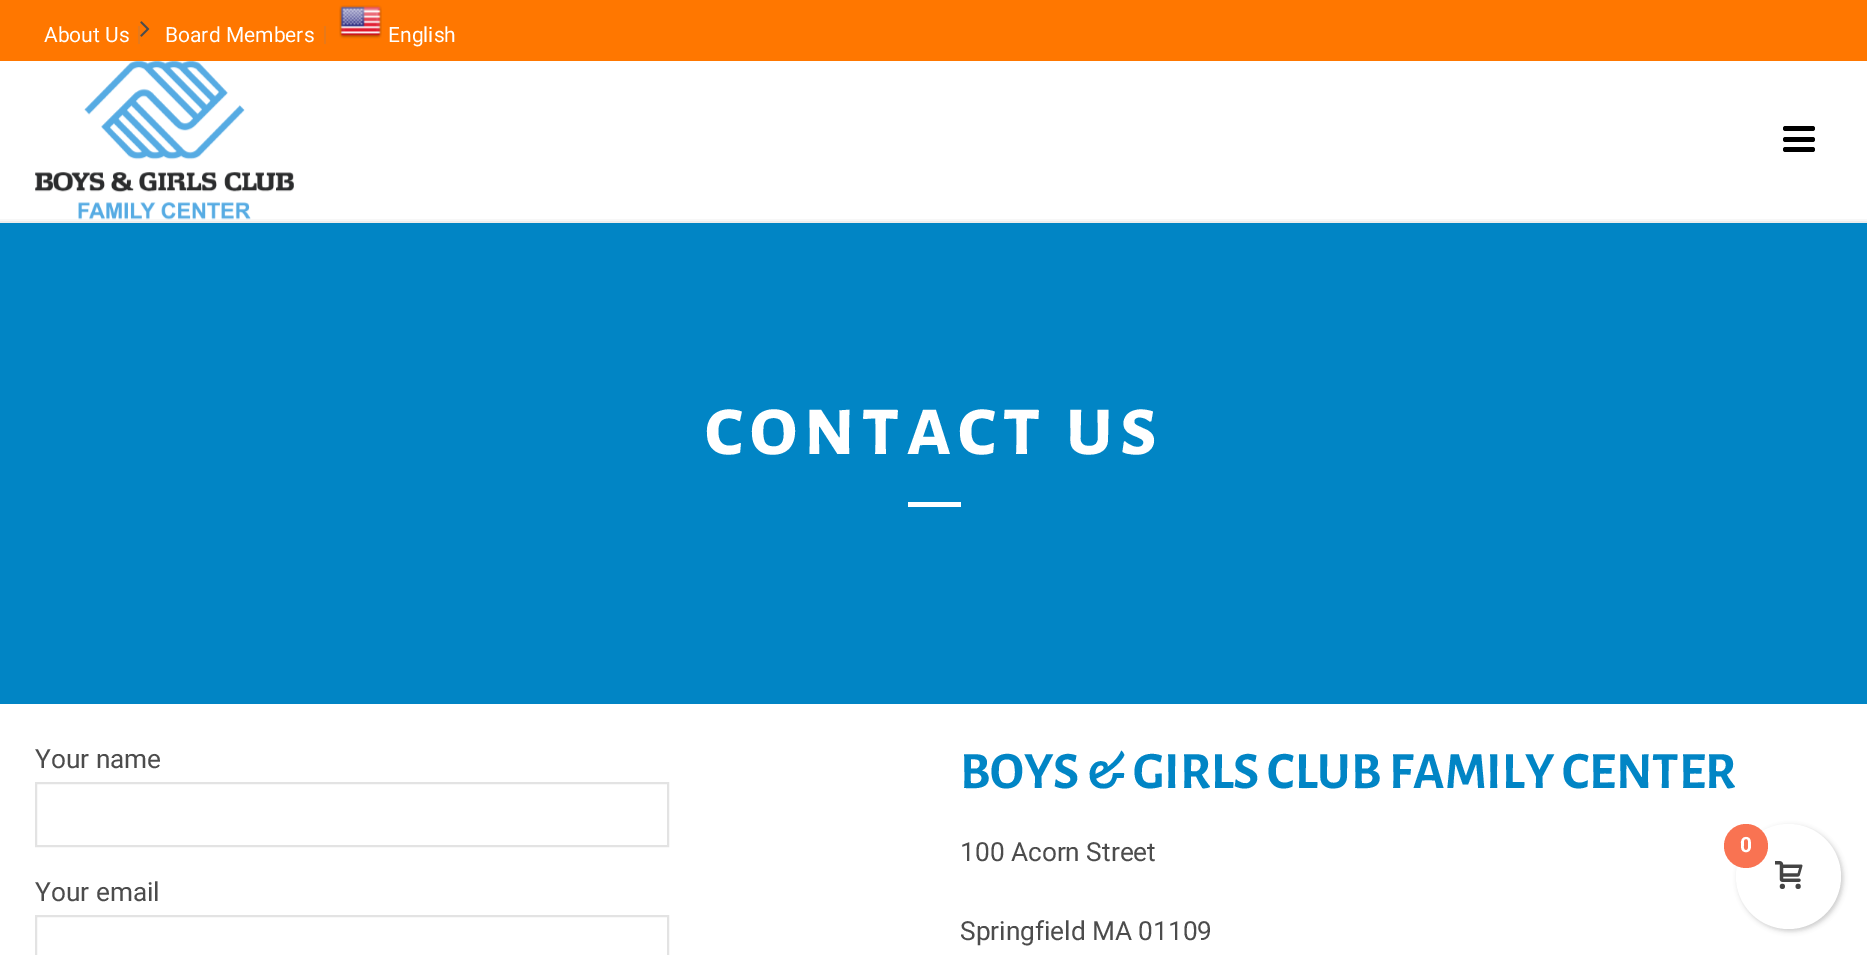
%!PS
<< /PageSize [1867 955] /PageUsesTransparency true >> setpagedevice
/rgb { dup -16 bitshift 255 div exch dup -8 bitshift 255 and 255 div exch 255 and 255 div setrgbcolor } def
/font { [ exch dup neg 0 0 3 -1 roll 0 0 ] selectfont } def
/text { moveto show } def
/alpha { dup .setfillconstantalpha .setstrokeconstantalpha } def
/circle { newpath 0 360 arc closepath } def
/roundrect { 5 dict begin { /r /h /w /y /x } { exch def } forall
  x r add y moveto x w add y 2 copy h add r arct x w add y h add x 1 index r arct
  x y h add x y r arct x y 2 copy exch w add exch r arct closepath end } def
/shadow { 12 dict begin { /a /b /q /h /w /y /x } { exch def } forall gsave /was 0 def
  9 -2 -9 { dup b mul 4 div /e exch def 1 sub .425 mul 2.718 exch exp 1 add a .99 .min exch div /now exch def
    1 1 now sub 1 was sub div sub alpha /was now def
    w h .min e 2 mul add 0 gt { x e sub y e sub w e 2 mul add h e 2 mul add
      q e add b .6 mul add w h .min 2 div e add .min 0 .max roundrect fill } if } for grestore end } def
/picture { 5 dict begin { /h /w /y /x /name } { exch def } forall
  gsave x y translate w h scale
  w h 8 [w 0 0 h 0 0] name (r) file false 3 colorimage grestore end } def
0 .pushpdf14devicefilter
0 955 translate 1 -1 scale
4 setmiterlimit
/s1 { /Roboto-Regular 21 font 16#FFFFFF rgb } def
/s2 { /Roboto-Regular 26.25 font 16#4C4C4C rgb } def
/s3 { /AlegreyaSansSC-Bold 52.5 font 16#0185C5 rgb } def
/s4 { /Roboto-Bold 21 font 16#FFFFFF rgb } def
16#FFFFFF rgb
0 0 1867 955 rectfill
16#F7F7F7 rgb
0 219 1867 2 rectfill
16#EDEDED rgb
0 221 1867 2 rectfill
16#FF7700 rgb
0 0 1867 61 rectfill
16#E6791A rgb
138 26 2 18 rectfill
s1
(About Us) 44 42 text
(pic1.raw) 140 21 10 16 picture
16#E6791A rgb
324 26 2 18 rectfill
s1
(Board Members) 165 42 text
(pic2.raw) 339 5 43 34 picture
(English) 388 42 text
(pic3.raw) 35 61 259 159 picture
16#000000 rgb
1783 126 32 5 2.5 roundrect fill
1783 137 32 5 2.5 roundrect fill
1783 147 32 5 2.5 roundrect fill
16#0185C5 rgb
0 223 1867 481 rectfill
/AlegreyaSansSC-Bold 87.5 font
16#FFFFFF rgb
704 454 moveto 5.25 0 (contact us) ashow
908 502 53 5 rectfill
s2
(Your name) 35 768 text
16#E3E3E3 rgb
2 setlinewidth
36 783 632 63 rectstroke
s2
(Your email) 35 901 text
16#E3E3E3 rgb
36 916 632 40 rectstroke
s3
(BOYS & GIRLS CLUB FAMILY CENTER) 960 788 text
s2
(100 Acorn Street) 960 861 text
(Springfield MA 01109) 960 940 text
16#000000 rgb
1738 826 105 105 52.5 2.5 0.2 shadow
16#FFFFFF rgb
1788.5 876.5 52.5 circle fill
16#F97352 rgb
1746 846 22 circle fill
s4
(0) 1740 852 text
(pic4.raw) 1775 861 28 28 picture
.poppdf14devicefilter showpage
